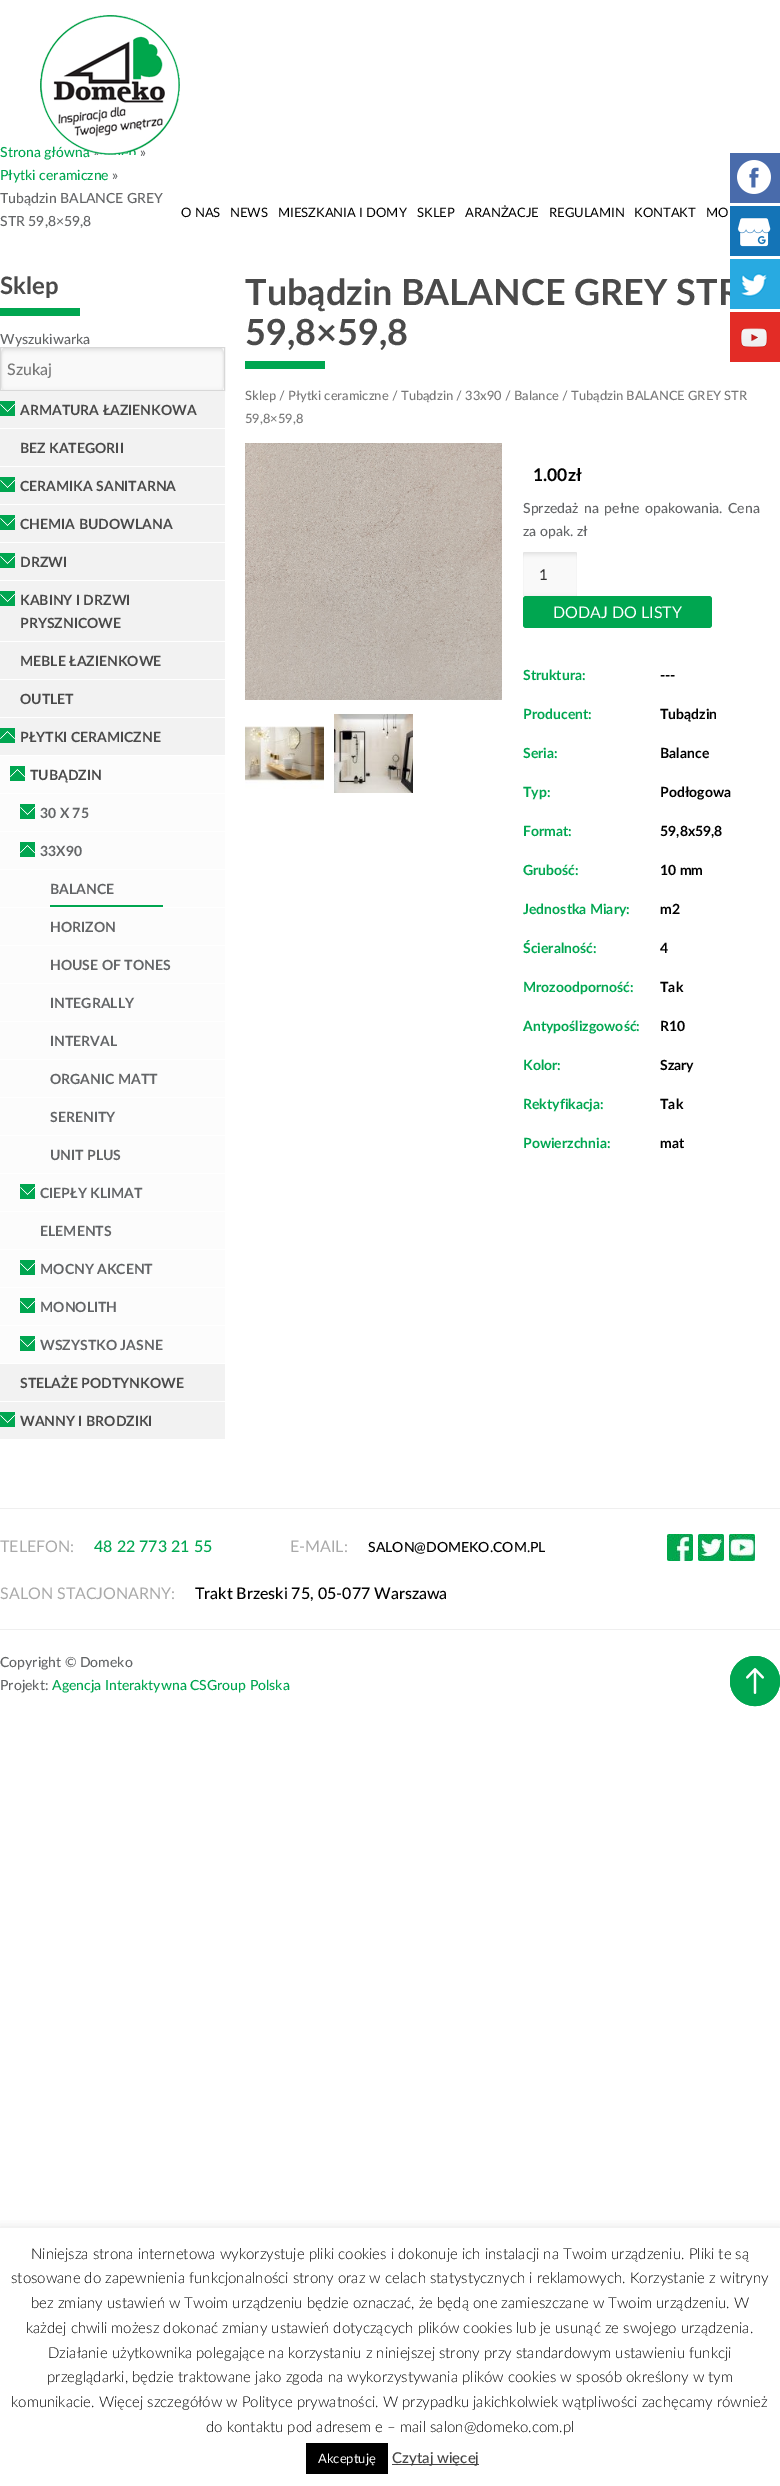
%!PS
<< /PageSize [780 2486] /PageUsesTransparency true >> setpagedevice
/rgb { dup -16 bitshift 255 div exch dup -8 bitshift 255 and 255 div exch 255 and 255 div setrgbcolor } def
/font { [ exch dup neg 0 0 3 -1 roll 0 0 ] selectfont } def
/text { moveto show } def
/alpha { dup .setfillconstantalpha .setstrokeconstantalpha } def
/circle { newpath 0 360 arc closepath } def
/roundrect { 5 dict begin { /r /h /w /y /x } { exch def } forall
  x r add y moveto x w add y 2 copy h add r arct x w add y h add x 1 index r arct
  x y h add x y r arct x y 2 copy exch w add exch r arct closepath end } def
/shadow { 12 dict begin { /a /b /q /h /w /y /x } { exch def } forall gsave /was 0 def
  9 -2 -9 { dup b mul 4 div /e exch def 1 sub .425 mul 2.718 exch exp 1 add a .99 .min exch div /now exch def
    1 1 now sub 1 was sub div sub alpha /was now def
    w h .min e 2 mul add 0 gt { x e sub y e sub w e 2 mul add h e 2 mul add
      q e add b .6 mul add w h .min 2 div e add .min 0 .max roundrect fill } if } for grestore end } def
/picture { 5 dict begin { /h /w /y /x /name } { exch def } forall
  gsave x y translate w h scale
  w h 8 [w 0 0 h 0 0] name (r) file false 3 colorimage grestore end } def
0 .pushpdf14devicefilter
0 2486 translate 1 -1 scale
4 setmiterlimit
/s1 { /Lato-Medium 14 font 16#00A650 rgb } def
/s2 { /Lato-Medium 14 font 16#636567 rgb } def
/s3 { /Lato-Regular 13 font 16#000000 rgb } def
/s4 { /Lato-Bold 36 font 16#4A4A4A rgb } def
/s5 { /Lato-Bold 24 font 16#4A4A4A rgb } def
/s6 { /Lato-Medium 16 font 16#777777 rgb } def
/s7 { /Lato-Bold 14 font 16#4A4A4A rgb } def
/s8 { /Lato-Bold 14 font 16#636567 rgb } def
/s9 { /Lato-Medium 12.9 font 16#777777 rgb } def
/s10 { /Lato-Bold 17.5 font 16#000000 rgb } def
/s11 { /Lato-Medium 15 font 16#313131 rgb } def
/s12 { /Lato-Regular 16 font 16#FFFFFF rgb } def
/s13 { /Lato-Bold 14 font 16#00A650 rgb } def
/s14 { /Lato-Bold 14 font 16#000000 rgb } def
/s15 { /Lato-Regular 16 font 16#A9A9A9 rgb } def
/s16 { /Lato-Medium 16 font 16#00A650 rgb } def
/s17 { /Lato-Medium 14 font 16#000000 rgb } def
/s18 { /Lato-Medium 16 font 16#000000 rgb } def
/s19 { /Lato-Light 15 font 16#000000 rgb } def
/s20 { /Lato-Regular 13 font 16#FFFFFF rgb } def
/s21 { /Lato-Medium 15 font 16#444444 rgb } def
16#FFFFFF rgb
0 0 780 2486 rectfill
s1
(Strona główna) 0 157 text
s2
(») 140 157 text
s1
(Płytki ceramiczne) 0 180 text
s2
(») 112 180 text
(Tubądzin BALANCE GREY) 0 203 text
(STR 59,8×59,8) 0 226 text
(pic1.raw) 40 15 140 140 picture
s3
(O NAS) 181 217 text
(NEWS) 230 217 text
(MIESZKANIA I DOMY) 278 217 text
(SKLEP) 417 217 text
(ARANŻACJE) 465 217 text
(REGULAMIN) 549 217 text
(KONTAKT) 634 217 text
(MO) 706 217 text
16#496BAB rgb
730 153 50 50 rectfill
(pic2.raw) 737 160 34 34 picture
16#1474B7 rgb
730 206 50 50 rectfill
(pic3.raw) 737 217 34 30 picture
s4
(Tubądzin BALANCE GREY STR) 245 305 text
16#28AAE1 rgb
730 259 50 50 rectfill
(pic4.raw) 740 273 28 24 picture
16#E32C26 rgb
730 312 50 50 rectfill
(pic5.raw) 740 328 28 20 picture
s5
(Sklep) 0 294 text
16#00A650 rgb
0 308 80 8 rectfill
s2
(Wyszukiwarka) 0 344 text
(pic6.raw) 1 348 223 42 picture
16#D8D8D8 rgb
0.5 347.5 224 43 rectstroke
s6
(Szukaj) 7 375 text
16#F2F2F2 rgb
0 391 225 37 rectfill
16#00A650 rgb
0 401 15 15 rectfill
(pic7.raw) 0 404 15 8 picture
s7
(ARMATURA ŁAZIENKOWA) 20 415 text
16#F2F2F2 rgb
0 429 225 37 rectfill
s7
(BEZ KATEGORII) 20 453 text
16#F2F2F2 rgb
0 467 225 37 rectfill
16#00A650 rgb
0 477 15 15 rectfill
(pic7.raw) 0 480 15 8 picture
s7
(CERAMIKA SANITARNA) 20 491 text
16#F2F2F2 rgb
0 505 225 37 rectfill
16#00A650 rgb
0 515 15 15 rectfill
(pic7.raw) 0 518 15 8 picture
s7
(CHEMIA BUDOWLANA) 20 529 text
16#F2F2F2 rgb
0 543 225 37 rectfill
16#00A650 rgb
0 553 15 15 rectfill
(pic7.raw) 0 556 15 8 picture
s7
(DRZWI) 20 567 text
16#F2F2F2 rgb
0 581 225 60 rectfill
16#00A650 rgb
0 591 15 15 rectfill
(pic7.raw) 0 594 15 8 picture
s7
(KABINY I DRZWI) 20 605 text
(PRYSZNICOWE) 20 628 text
16#F2F2F2 rgb
0 642 225 37 rectfill
s7
(MEBLE ŁAZIENKOWE) 20 666 text
16#F2F2F2 rgb
0 680 225 37 rectfill
s7
(OUTLET) 20 704 text
16#F2F2F2 rgb
0 718 225 37 rectfill
16#00A650 rgb
0 728 15 15 rectfill
(pic8.raw) 0 731 15 8 picture
s7
(PŁYTKI CERAMICZNE) 20 742 text
16#FCFCFC rgb
0 756 225 37 rectfill
16#00A650 rgb
10 766 15 15 rectfill
(pic8.raw) 10 769 15 8 picture
s7
(TUBĄDZIN) 30 780 text
16#FCFCFC rgb
0 794 225 37 rectfill
16#00A650 rgb
20 804 15 15 rectfill
(pic7.raw) 20 807 15 8 picture
s8
(30 X 75) 40 818 text
16#FCFCFC rgb
0 832 225 37 rectfill
16#00A650 rgb
20 842 15 15 rectfill
(pic8.raw) 20 845 15 8 picture
s8
(33X90) 40 856 text
16#FCFCFC rgb
0 870 225 37 rectfill
s8
(BALANCE) 50 894 text
16#00A650 rgb
50 905 113 2 rectfill
16#FCFCFC rgb
0 908 225 37 rectfill
s8
(HORIZON) 50 932 text
16#FCFCFC rgb
0 946 225 37 rectfill
s8
(HOUSE OF TONES) 50 970 text
16#FCFCFC rgb
0 984 225 37 rectfill
s8
(INTEGRALLY) 50 1008 text
16#FCFCFC rgb
0 1022 225 37 rectfill
s8
(INTERVAL) 50 1046 text
16#FCFCFC rgb
0 1060 225 37 rectfill
s8
(ORGANIC MATT) 50 1084 text
16#FCFCFC rgb
0 1098 225 37 rectfill
s8
(SERENITY) 50 1122 text
16#FCFCFC rgb
0 1136 225 37 rectfill
s8
(UNIT PLUS) 50 1160 text
16#FCFCFC rgb
0 1174 225 37 rectfill
16#00A650 rgb
20 1184 15 15 rectfill
(pic7.raw) 20 1187 15 8 picture
s8
(CIEPŁY KLIMAT) 40 1198 text
16#FCFCFC rgb
0 1212 225 37 rectfill
s8
(ELEMENTS) 40 1236 text
16#FCFCFC rgb
0 1250 225 37 rectfill
16#00A650 rgb
20 1260 15 15 rectfill
(pic7.raw) 20 1263 15 8 picture
s8
(MOCNY AKCENT) 40 1274 text
16#FCFCFC rgb
0 1288 225 37 rectfill
16#00A650 rgb
20 1298 15 15 rectfill
(pic7.raw) 20 1301 15 8 picture
s8
(MONOLITH) 40 1312 text
16#FCFCFC rgb
0 1326 225 37 rectfill
16#00A650 rgb
20 1336 15 15 rectfill
(pic7.raw) 20 1339 15 8 picture
s8
(WSZYSTKO JASNE) 40 1350 text
16#F2F2F2 rgb
0 1364 225 37 rectfill
s7
(STELAŻE PODTYNKOWE) 20 1388 text
16#F2F2F2 rgb
0 1402 225 37 rectfill
16#00A650 rgb
0 1412 15 15 rectfill
(pic7.raw) 0 1415 15 8 picture
s7
(WANNY I BRODZIKI) 20 1426 text
s4
(59,8×59,8) 245 345 text
16#00A650 rgb
245 361 80 8 rectfill
s9
(Sklep / Płytki ceramiczne / Tubądzin / 33x90 / Balance / Tubądzin BALANCE GREY STR) 245 400 text
(59,8×59,8) 245 423 text
(pic9.raw) 245 443 257 257 picture
(pic10.raw) 245 726 79 63 picture
(pic11.raw) 334 714 79 79 picture
s10
(1.00zł) 533 481 text
/Lato-Medium 14 font
16#636567 rgb
523 513 moveto 2 0 32 (Sprzedaż na pełne opakowania. Cena) widthshow
(za opak. zł) 523 536 text
(pic12.raw) 523 552 54 44 picture
s11
(1) 539 580 text
16#00A650 rgb
523 596 189 32 3 roundrect fill
s12
(DODAJ DO LISTY) 553 618 text
s13
(Struktura:) 523 680 text
s14
(---) 660 680 text
s13
(Producent:) 523 719 text
s14
(Tubądzin) 660 719 text
s13
(Seria:) 523 758 text
s14
(Balance) 660 758 text
s13
(Typ:) 523 797 text
s14
(Podłogowa) 660 797 text
s13
(Format:) 523 836 text
s14
(59,8x59,8) 660 836 text
s13
(Grubość:) 523 875 text
s14
(10 mm) 660 875 text
s13
(Jednostka Miary:) 523 914 text
s14
(m2) 660 914 text
s13
(Ścieralność:) 523 953 text
s14
(4) 660 953 text
s13
(Mrozoodporność:) 523 992 text
s14
(Tak) 660 992 text
s13
(Antypoślizgowość:) 523 1031 text
s14
(R10) 660 1031 text
s13
(Kolor:) 523 1070 text
s14
(Szary) 660 1070 text
s13
(Rektyfikacja:) 523 1109 text
s14
(Tak) 660 1109 text
s13
(Powierzchnia:) 523 1148 text
s14
(mat) 660 1148 text
16#EFEFEF rgb
0 1508 780 1 rectfill
0 1629 780 1 rectfill
s15
(TELEFON:) 0 1552 text
s16
(48 22 773 21 55) 94 1552 text
s15
(E-MAIL:) 290 1552 text
s17
(SALON@DOMEKO.COM.PL) 368 1552 text
(pic13.raw) 667 1534 26 27 picture
(pic14.raw) 698 1534 26 27 picture
(pic15.raw) 729 1534 26 27 picture
s15
(SALON STACJONARNY:) 0 1599 text
s18
(Trakt Brzeski 75, 05-077 Warszawa) 195 1599 text
s2
(Copyright © Domeko) 0 1667 text
16#00A650 rgb
755 1681 25 circle fill
(pic16.raw) 746 1668 18 26 picture
755 1681 24.5 circle stroke
s2
(Projekt:) 0 1690 text
s1
(Agencja Interaktywna CSGroup Polska) 52 1690 text
gsave
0 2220 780 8 rectclip
16#ACABAB rgb
0 2227 780 258 0 5 0.3 shadow
grestore
s19
(Niniejsza strona internetowa wykorzystuje pliki cookies i dokonuje ich instalacji na Twoim urządzeniu. Pliki te są) 31 2259 text
(stosowane do zapewnienia funkcjonalności strony oraz w celach statystycznych i reklamowych. Korzystanie z witryny) 11 2283 text
(bez zmiany ustawień w Twoim urządzeniu będzie oznaczać, że będą one zamieszczane w Twoim urządzeniu. W) 31 2308 text
(każdej chwili możesz dokonać zmiany ustawień dotyczących plików cookies lub je usunąć ze swojego urządzenia.) 26 2333 text
(Działanie użytkownika polegające na korzystaniu z niniejszej strony przy standardowym ustawieniu funkcji) 48 2358 text
(przeglądarki, będzie traktowane jako zgoda na wykorzystywania plików cookies w sposób określony w tym) 47 2382 text
(komunikacie. Więcej szczegółów w Polityce prywatności. W przypadku jakichkolwiek wątpliwości zachęcamy również) 11 2407 text
(do kontaktu pod adresem e – mail salon@domeko.com.pl) 206 2432 text
306 2443 82 31 rectfill
s20
(Akceptuję) 318 2463 text
16#444444 rgb
392 2464 87 1 rectfill
s21
(Czytaj więcej) 392 2463 text
.poppdf14devicefilter showpage
